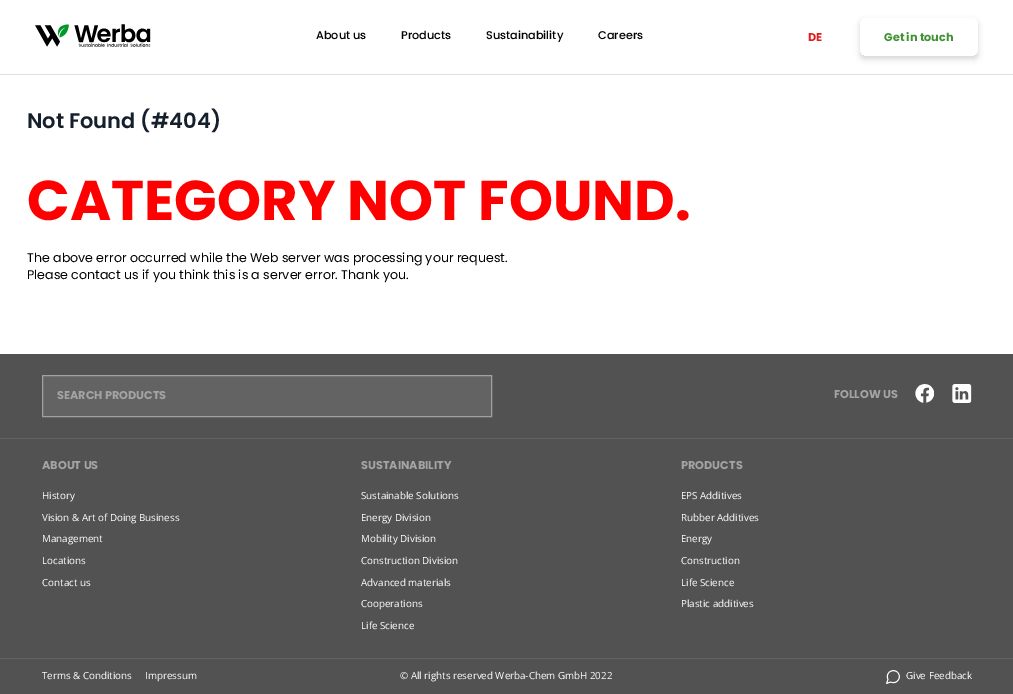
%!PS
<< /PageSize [1013 694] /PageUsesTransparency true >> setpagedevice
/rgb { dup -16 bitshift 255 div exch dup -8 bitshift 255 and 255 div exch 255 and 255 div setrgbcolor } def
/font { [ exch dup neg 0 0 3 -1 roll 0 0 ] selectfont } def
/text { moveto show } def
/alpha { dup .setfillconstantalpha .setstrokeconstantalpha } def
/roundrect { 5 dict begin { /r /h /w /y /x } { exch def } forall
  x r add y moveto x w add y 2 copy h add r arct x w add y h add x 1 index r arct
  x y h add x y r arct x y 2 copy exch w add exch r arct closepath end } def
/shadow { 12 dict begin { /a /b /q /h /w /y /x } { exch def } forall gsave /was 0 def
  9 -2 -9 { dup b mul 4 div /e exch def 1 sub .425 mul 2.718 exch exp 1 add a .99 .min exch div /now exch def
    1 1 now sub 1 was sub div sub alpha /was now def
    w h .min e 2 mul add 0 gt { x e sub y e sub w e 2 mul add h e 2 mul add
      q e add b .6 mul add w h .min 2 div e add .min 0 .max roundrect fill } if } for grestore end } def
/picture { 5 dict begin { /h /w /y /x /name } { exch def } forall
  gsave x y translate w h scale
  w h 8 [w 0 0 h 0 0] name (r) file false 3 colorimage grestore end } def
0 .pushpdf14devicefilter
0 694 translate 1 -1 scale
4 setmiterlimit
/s1 { /Poppins-Medium 11.25 font 16#000000 rgb } def
/s2 { /Poppins-Bold 11.25 font 16#E21B1F rgb } def
/s3 { /Poppins-Bold 11.25 font 16#419235 rgb } def
/s4 { /Poppins-SemiBold 21 font 16#16202D rgb } def
/s5 { /Poppins-Bold 56 font 16#FF0000 rgb } def
/s6 { /Poppins-Regular 12.6 font 16#000000 rgb } def
/s7 { /Poppins-Bold 11.25 font 16#A4A4A4 rgb } def
/s8 { /OpenSans-Regular 9.8 font 16#FFFFFF rgb } def
16#FFFFFF rgb
0 0 1013 694 rectfill
16#DFDFDF rgb
0 74 1013 1 rectfill
(pic1.raw) 35 24 116 23 picture
s1
(About us) 316 39 text
(Products) 401 39 text
(Sustainability) 486 39 text
(Careers) 598 39 text
s2
(DE) 808 41 text
gsave
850 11 moveto 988 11 lineto 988 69 lineto 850 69 lineto closepath 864 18 moveto 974 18 lineto 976 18 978 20 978 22 curveto 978 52 lineto 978 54 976 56 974 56 curveto 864 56 lineto 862 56 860 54 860 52 curveto 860 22 lineto 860 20 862 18 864 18 curveto closepath eoclip newpath
16#000000 rgb
860 21 118 38 4 3 0.16 shadow
grestore
s3
(Get in touch) 884 41 text
s4
(Not Found \(#404\)) 27 128 text
s5
(CATEGORY NOT FOUND.) 27 220 text
s6
(The above error occurred while the Web server was processing your request.) 27 262 text
(Please contact us if you think this is a server error. Thank you.) 27 279 text
16#525252 rgb
0 354 1013 340 rectfill
16#636363 rgb
42.5 375.5 moveto 491.5 375.5 lineto 491.5 416.5 lineto 42.5 416.5 lineto closepath gsave fill grestore
16#A1A1A1 rgb
stroke
s7
(SEARCH PRODUCTS) 57 399 text
(FOLLOW US) 834 398 text
(pic2.raw) 915 384 19 19 picture
(pic3.raw) 952 384 20 19 picture
16#636363 rgb
0 438 1013 1 rectfill
0 658 1013 1 rectfill
s7
(ABOUT US) 42 469 text
s8
(History) 42 499 text
(Vision & Art of Doing Business) 42 521 text
(Management) 42 542 text
(Locations) 42 564 text
(Contact us) 42 586 text
s7
(SUSTAINABILITY) 361 469 text
s8
(Sustainable Solutions) 361 499 text
(Energy Division) 361 521 text
(Mobility Division) 361 542 text
(Construction Division) 361 564 text
(Advanced materials) 361 586 text
(Cooperations) 361 607 text
(Life Science) 361 629 text
s7
(PRODUCTS) 681 469 text
s8
(EPS Additives) 681 499 text
(Rubber Additives) 681 521 text
(Energy) 681 542 text
(Construction) 681 564 text
(Life Science) 681 586 text
(Plastic additives) 681 607 text
(Terms & Conditions) 42 679 text
(Impressum) 145 679 text
(© All rights reserved Werba-Chem GmbH 2022) 400 679 text
(pic4.raw) 886 670 14 14 picture
(Give Feedback) 906 679 text
.poppdf14devicefilter showpage
